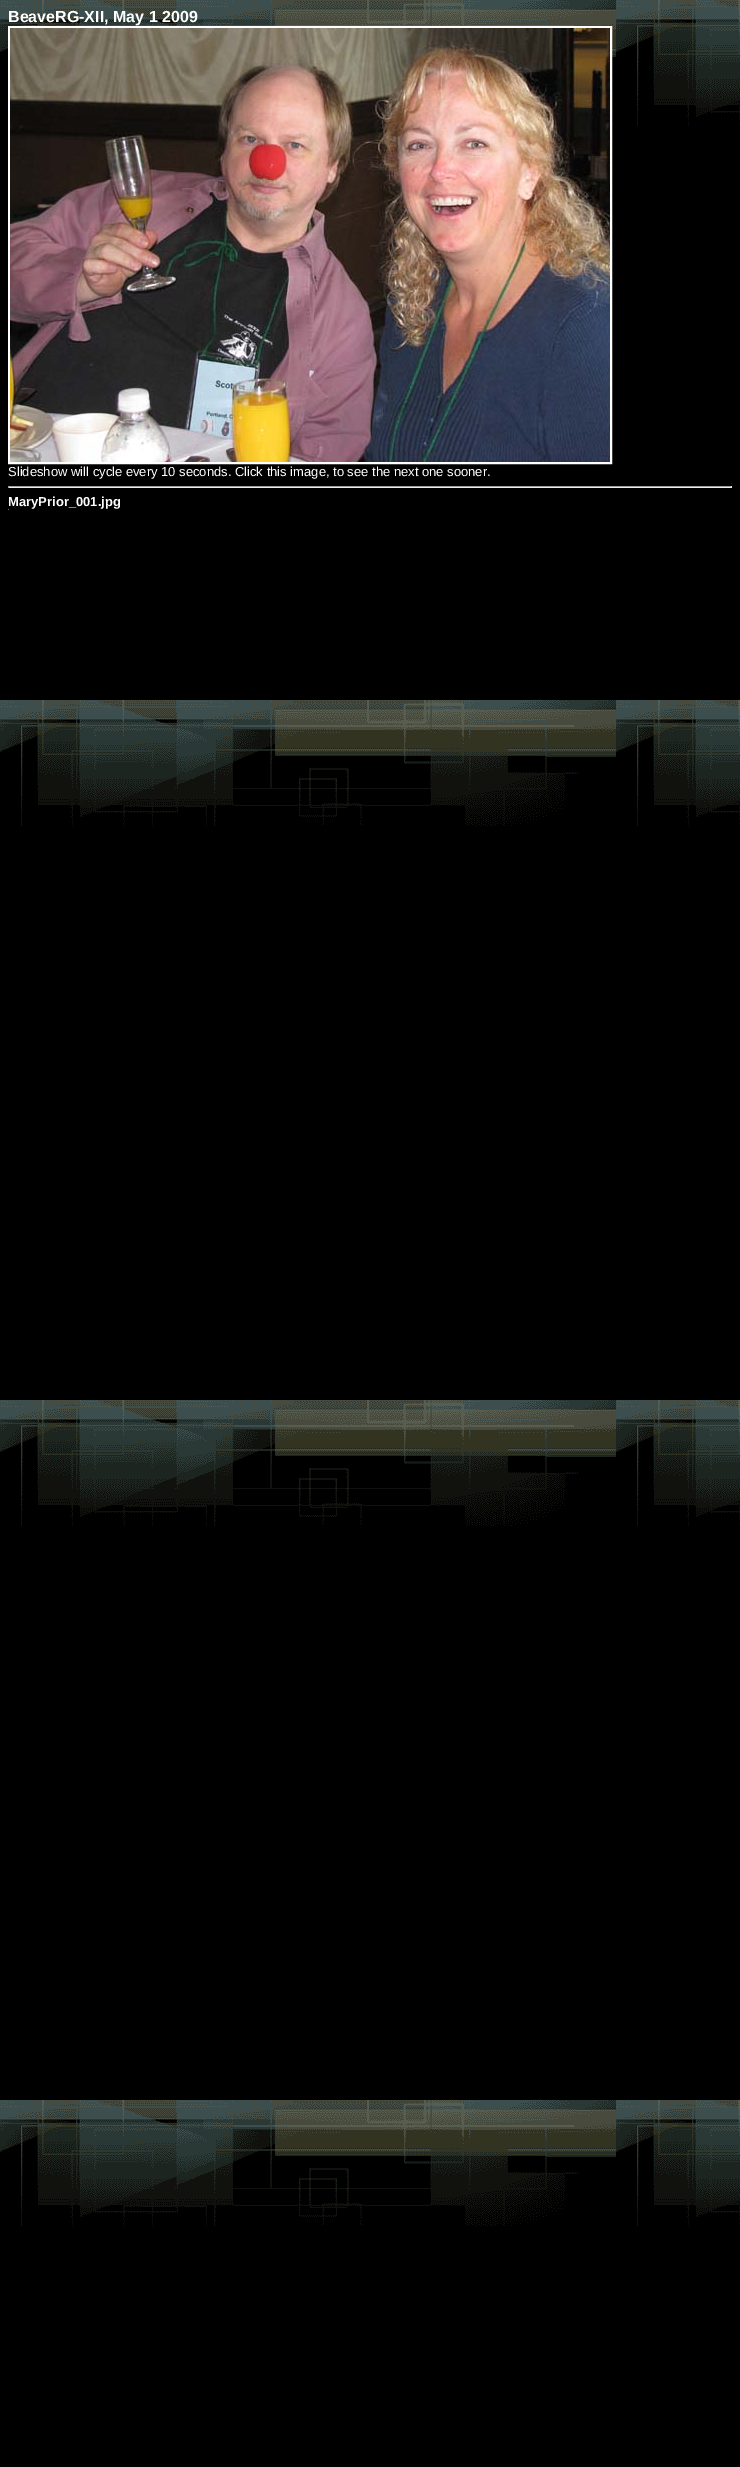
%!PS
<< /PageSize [740 2467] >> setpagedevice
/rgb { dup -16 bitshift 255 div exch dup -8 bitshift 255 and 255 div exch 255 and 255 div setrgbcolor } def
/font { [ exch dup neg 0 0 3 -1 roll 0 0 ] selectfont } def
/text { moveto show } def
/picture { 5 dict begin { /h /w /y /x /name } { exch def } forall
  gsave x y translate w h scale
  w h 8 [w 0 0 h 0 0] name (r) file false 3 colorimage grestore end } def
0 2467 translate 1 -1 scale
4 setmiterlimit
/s1 { /LiberationSans-Bold 16 font 16#FFFFFF rgb } def
/s2 { /LiberationSans-Regular 13 font 16#FFFFFF rgb } def
/s3 { /LiberationSans-Bold 13 font 16#FFFFFF rgb } def
16#000000 rgb
0 0 740 2467 rectfill
(pic1.raw) 0 0 740 2226 picture
s1
(BeaveRG-XII, May 1 2009) 8 22 text
2 setlinewidth
9 27 602 436 rectstroke
(pic2.raw) 10 28 600 434 picture
s2
(Slideshow will cycle every 10 seconds. Click this image, to see the next one sooner.) 8 476 text
16#9F9F9F rgb
8 486 724 1 rectfill
16#EEEEEE rgb
731 486 1 2 rectfill
8 487 724 1 rectfill
16#9F9F9F rgb
8 486 1 2 rectfill
s3
(MaryPrior_001.jpg) 8 506 text
16#776952 rgb
8 509 1 1 rectfill
showpage
